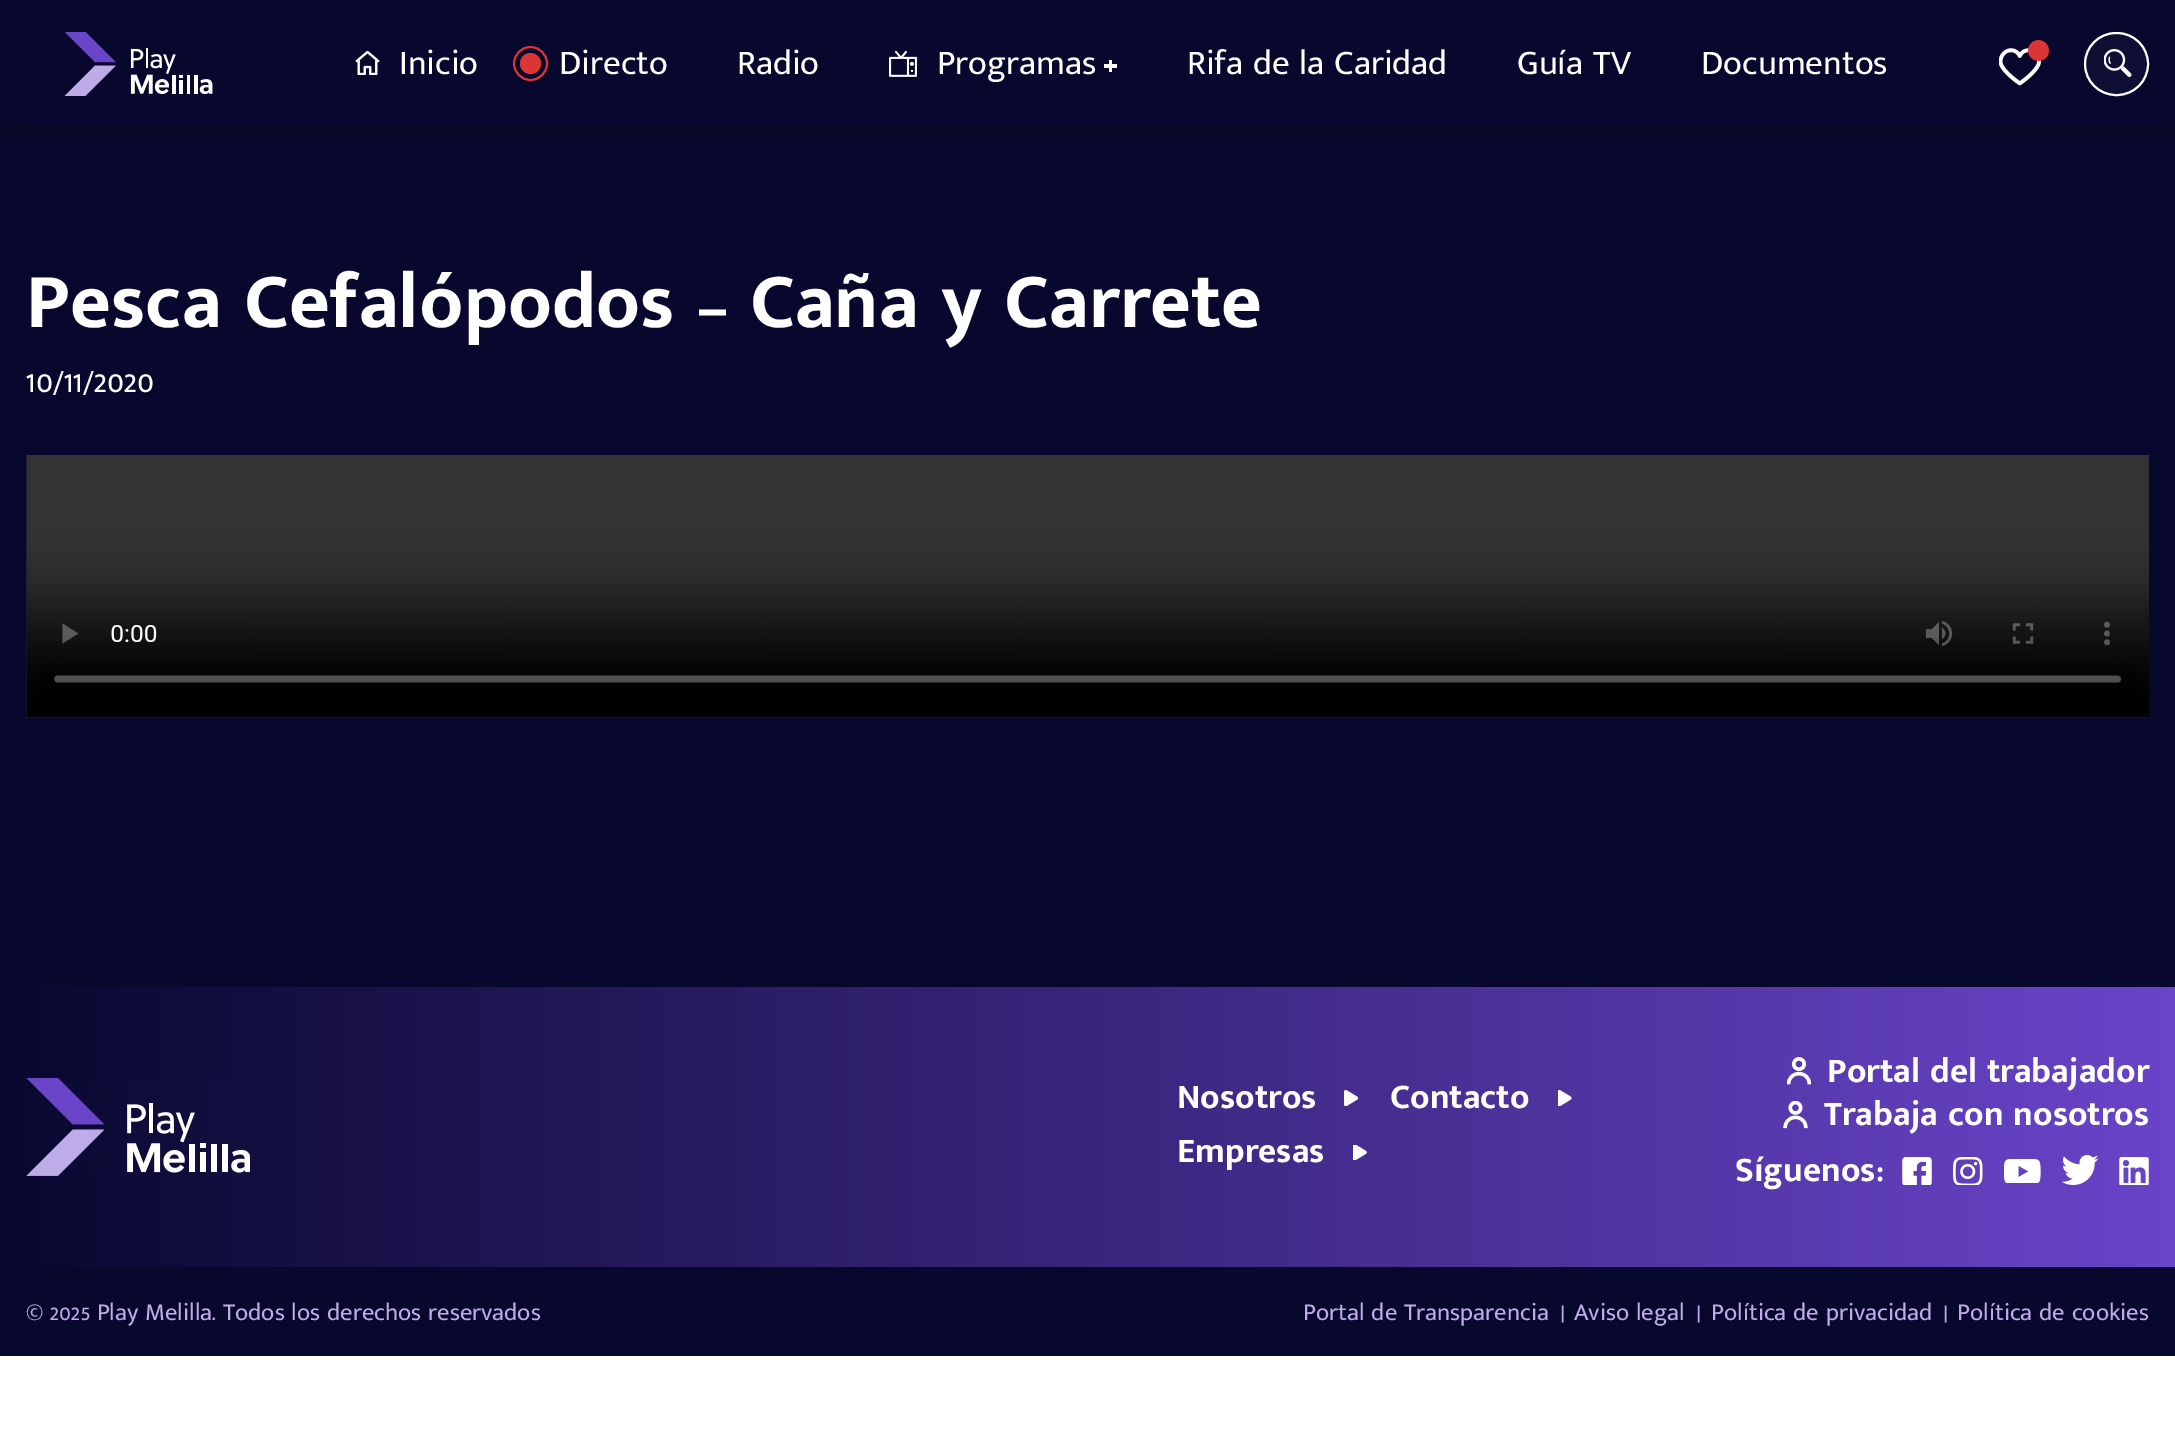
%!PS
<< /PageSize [2175 1452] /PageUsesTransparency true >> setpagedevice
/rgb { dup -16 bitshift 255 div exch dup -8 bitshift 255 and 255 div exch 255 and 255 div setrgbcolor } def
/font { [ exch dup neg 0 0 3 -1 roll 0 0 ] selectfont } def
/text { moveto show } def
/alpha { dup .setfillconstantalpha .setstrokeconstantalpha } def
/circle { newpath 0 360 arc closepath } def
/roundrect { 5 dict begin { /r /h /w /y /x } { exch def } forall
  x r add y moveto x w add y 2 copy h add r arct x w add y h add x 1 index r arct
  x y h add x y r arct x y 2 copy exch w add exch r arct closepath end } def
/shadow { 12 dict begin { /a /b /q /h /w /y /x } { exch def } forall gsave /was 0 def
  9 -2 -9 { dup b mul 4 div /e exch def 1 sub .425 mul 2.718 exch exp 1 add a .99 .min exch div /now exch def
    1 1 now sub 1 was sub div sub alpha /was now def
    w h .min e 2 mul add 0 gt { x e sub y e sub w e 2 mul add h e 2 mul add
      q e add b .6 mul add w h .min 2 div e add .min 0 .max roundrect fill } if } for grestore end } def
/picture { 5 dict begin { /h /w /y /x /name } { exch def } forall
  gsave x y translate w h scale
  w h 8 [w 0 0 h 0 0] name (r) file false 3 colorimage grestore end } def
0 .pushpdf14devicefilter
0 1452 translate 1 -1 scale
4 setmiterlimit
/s1 { /MuktaMalar-Regular 35 font 16#FFFFFF rgb } def
/s2 { /MuktaMalar-Bold 78.75 font 16#FFFFFF rgb } def
/s3 { /MuktaMalar-Bold 35 font 16#FFFFFF rgb } def
/s4 { /MuktaMalar-Regular 24.5 font 16#BDACE7 rgb } def
16#FFFFFF rgb
0 0 2175 1452 rectfill
16#08082F rgb
0 126 2175 861 rectfill
16#000000 rgb
0 5 2175 126 0 9 0.25 shadow
16#08082F rgb
0 0 2175 126 rectfill
(pic1.raw) 64 32 149 64 picture
(pic2.raw) 355 51 25 24 picture
s1
(Inicio) 399 74 text
16#DB3535 rgb
2 setlinewidth
530.5 63.5 16.5 circle stroke
s1
(Directo) 559 74 text
16#DB3535 rgb
530.5 63.5 10.5 circle fill
s1
(Radio) 737 74 text
(pic3.raw) 889 51 28 26 picture
(Programas) 937 74 text
1109 60 3 12 rectfill
1104 64 13 4 rectfill
(Rifa de la Caridad) 1187 74 text
(Guía TV) 1517 74 text
(Documentos) 1701 74 text
(pic4.raw) 1999 40 50 46 picture
16#0F0F35 rgb
2084 32 65 64 32 roundrect fill
(pic5.raw) 2104 49 28 28 picture
16#FFFFFF rgb
2085 33 63 62 31 roundrect stroke
s2
(Pesca Cefalópodos – Caña y Carrete) 26 327 text
s1
(10/11/2020) 26 392 text
(pic6.raw) 26 455 2123 263 picture
gsave 0 987 moveto 2175 987 lineto 2175 1267 lineto 0 1267 lineto closepath clip newpath
<< /ShadingType 2 /ColorSpace /DeviceRGB /Coords [0 1127 2175 1127] /Extend [true true] /Function << /FunctionType 2 /Domain [0 1] /C0 [0.031 0.031 0.184] /C1 [0.416 0.267 0.788] /N 1 >> >> shfill grestore
(pic7.raw) 26 1078 224 98 picture
s3
(Nosotros) 1177 1108 text
(pic8.raw) 1344 1090 15 16 picture
(Contacto) 1390 1108 text
(pic9.raw) 1558 1090 14 16 picture
(Empresas) 1177 1162 text
(pic10.raw) 1353 1145 14 15 picture
(pic11.raw) 1787 1057 24 28 picture
(Portal del trabajador) 1827 1082 text
(pic12.raw) 1783 1101 25 28 picture
(Trabaja con nosotros) 1824 1125 text
(Síguenos:) 1735 1181 text
(pic13.raw) 1902 1157 30 28 picture
(pic14.raw) 1953 1157 30 28 picture
(pic15.raw) 2004 1159 37 24 picture
(pic16.raw) 2062 1155 36 30 picture
(pic17.raw) 2119 1157 30 28 picture
16#08082F rgb
0 1267 2175 89 rectfill
s4
(© 2025 Play Melilla. Todos los derechos reservados) 26 1320 text
(Portal de Transparencia) 1303 1320 text
(|) 1560 1320 text
(Aviso legal) 1574 1320 text
(|) 1696 1320 text
(Política de privacidad) 1711 1320 text
(|) 1943 1320 text
(Política de cookies) 1957 1320 text
.poppdf14devicefilter showpage
